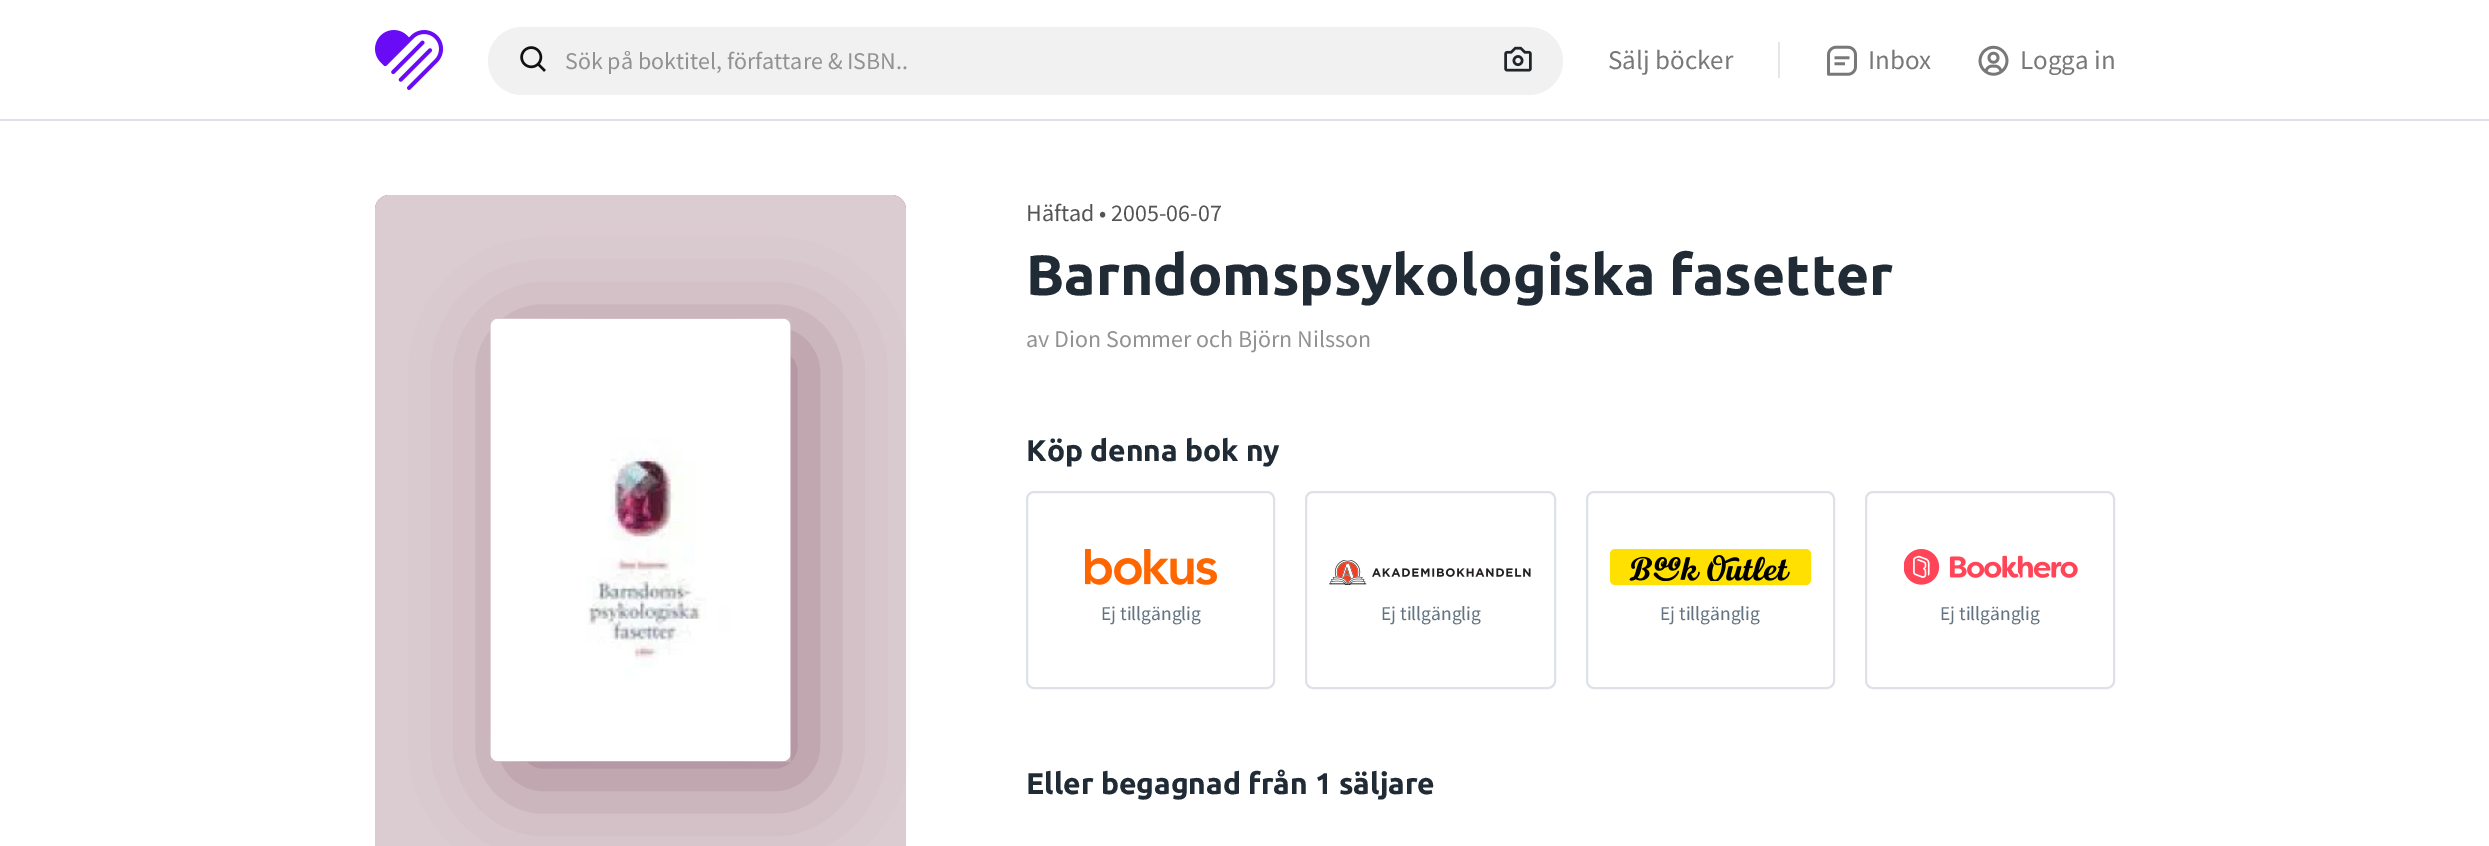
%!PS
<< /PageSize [2489 846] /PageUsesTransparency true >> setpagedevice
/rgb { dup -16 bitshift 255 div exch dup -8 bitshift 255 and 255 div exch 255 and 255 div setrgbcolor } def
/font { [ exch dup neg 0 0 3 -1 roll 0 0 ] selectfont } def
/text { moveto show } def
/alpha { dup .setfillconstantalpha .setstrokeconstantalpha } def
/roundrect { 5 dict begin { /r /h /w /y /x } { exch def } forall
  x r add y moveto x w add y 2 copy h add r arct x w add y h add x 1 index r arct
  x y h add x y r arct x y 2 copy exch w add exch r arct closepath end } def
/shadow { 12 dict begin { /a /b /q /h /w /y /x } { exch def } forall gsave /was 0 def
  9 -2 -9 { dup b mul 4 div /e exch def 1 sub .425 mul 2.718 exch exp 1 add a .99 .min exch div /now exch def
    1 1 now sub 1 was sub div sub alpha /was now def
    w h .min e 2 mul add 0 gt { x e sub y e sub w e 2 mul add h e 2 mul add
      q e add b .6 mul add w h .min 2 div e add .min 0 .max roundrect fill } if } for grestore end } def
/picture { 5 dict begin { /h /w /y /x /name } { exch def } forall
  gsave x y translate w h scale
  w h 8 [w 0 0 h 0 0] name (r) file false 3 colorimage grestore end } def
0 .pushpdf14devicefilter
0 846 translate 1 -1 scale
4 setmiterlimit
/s1 { /SourceSansPro-Regular 24 font 16#929292 rgb } def
/s2 { /SourceSansPro-Regular 27 font 16#787878 rgb } def
/s3 { /SourceSansPro-Regular 24 font 16#545454 rgb } def
/s4 { /Ubuntu-Bold 57 font 16#212B36 rgb } def
/s5 { /Ubuntu-Bold 30 font 16#212B36 rgb } def
/s6 { /SourceSansPro-Regular 19.5 font 16#637381 rgb } def
16#FFFFFF rgb
0 0 2489 846 rectfill
16#DEE2E8 rgb
0 119 2489 2 rectfill
(pic1.raw) 375 30 68 60 picture
16#F1F1F1 rgb
488 27 1075 68 34 roundrect fill
(pic2.raw) 520 46 26 26 picture
s1
(Sök på boktitel, författare & ISBN..) 565 69 text
(pic3.raw) 1504 46 28 26 picture
s2
(Sälj böcker) 1608 69 text
16#E6E6E6 rgb
1778 42 2 36 rectfill
(pic4.raw) 1827 45 30 31 picture
s2
(Inbox) 1868 69 text
(pic5.raw) 1978 45 31 31 picture
(Logga in) 2020 69 text
16#71334C rgb
390 195 moveto 891 195 lineto 899.5 195 906 201.5 906 210 curveto 906 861 lineto 375 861 lineto 375 210 lineto 375 201.5 381.5 195 390 195 curveto closepath fill
0.75 alpha
16#FFFFFF rgb
390 195 moveto 891 195 lineto 899.5 195 906 201.5 906 210 curveto 906 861 lineto 375 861 lineto 375 210 lineto 375 201.5 381.5 195 390 195 curveto closepath fill
1 alpha
16#71334C rgb
509 338 300 442 8 45 0.5 shadow
(pic6.raw) 490 318 301 444 picture
s3
(Häftad • 2005-06-07) 1026 221 text
s4
(Barndomspsykologiska fasetter) 1026 295 text
s1
(av Dion Sommer och Björn Nilsson) 1026 347 text
s5
(Köp denna bok ny) 1026 461 text
16#DEE2E8 rgb
2 setlinewidth
1027 492 247 196 7 roundrect stroke
(pic7.raw) 1085 549 132 36 picture
s6
(Ej tillgänglig) 1101 620 text
16#DEE2E8 rgb
1306 492 249 196 7 roundrect stroke
(pic8.raw) 1329 560 202 25 picture
s6
(Ej tillgänglig) 1381 620 text
16#DEE2E8 rgb
1587 492 247 196 7 roundrect stroke
16#FFE000 rgb
1610 549 201 36 5 roundrect fill
(pic9.raw) 1629 555 161 26 picture
s6
(Ej tillgänglig) 1660 620 text
16#DEE2E8 rgb
1866 492 248 196 7 roundrect stroke
(pic10.raw) 1904 549 174 36 picture
s6
(Ej tillgänglig) 1940 620 text
s5
(Eller begagnad från 1 säljare) 1026 794 text
.poppdf14devicefilter showpage
